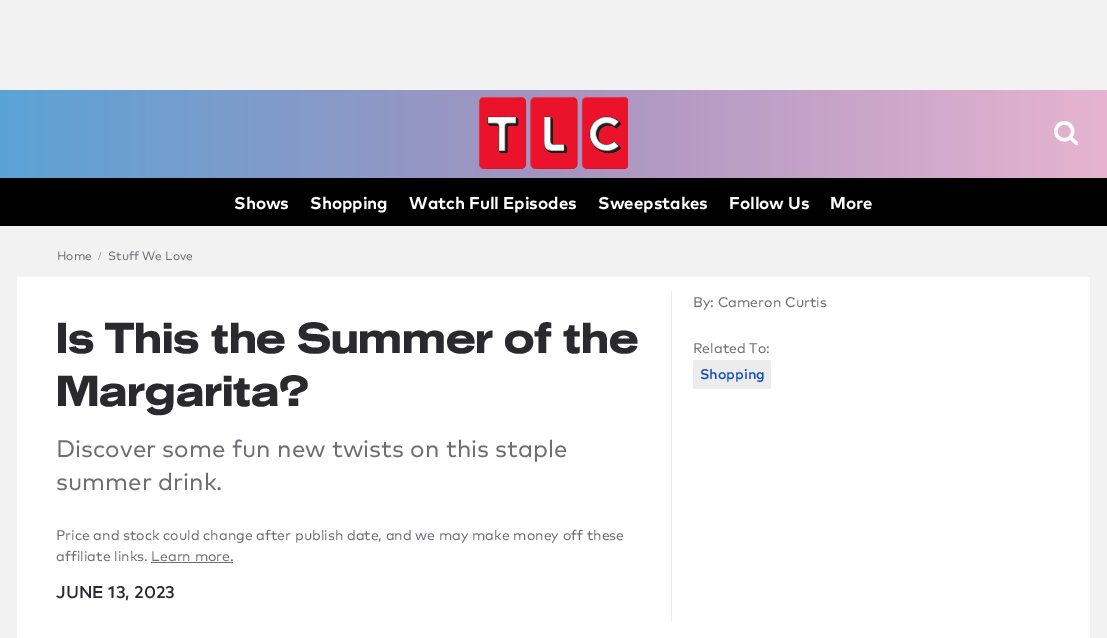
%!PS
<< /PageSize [1107 638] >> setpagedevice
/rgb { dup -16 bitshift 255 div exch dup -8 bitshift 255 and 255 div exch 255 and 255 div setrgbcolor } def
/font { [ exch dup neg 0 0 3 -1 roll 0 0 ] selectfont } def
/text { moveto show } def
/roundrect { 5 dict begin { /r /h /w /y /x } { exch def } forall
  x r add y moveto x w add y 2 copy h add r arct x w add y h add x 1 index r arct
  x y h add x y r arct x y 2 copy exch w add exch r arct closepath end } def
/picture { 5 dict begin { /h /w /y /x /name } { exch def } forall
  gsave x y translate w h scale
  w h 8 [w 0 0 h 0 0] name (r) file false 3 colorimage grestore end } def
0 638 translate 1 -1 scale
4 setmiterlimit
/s1 { /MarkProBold-Bold 17 font 16#FFFFFF rgb } def
/s2 { /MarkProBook-Regular 12 font 16#6D6D73 rgb } def
/s3 { /LiberationSerif-Regular 12 font 16#6D6D73 rgb } def
/s4 { /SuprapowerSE-Black 42 font 16#2A2A2E rgb } def
/s5 { /MarkProBook-Regular 24 font 16#6D6D73 rgb } def
/s6 { /MarkProBook-Regular 14 font 16#6D6D73 rgb } def
/s7 { /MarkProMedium-Medium 17 font 16#2A2A2E rgb } def
/s8 { /MarkProMedium-Medium 14 font 16#0F49B4 rgb } def
16#F2F2F2 rgb
0 0 1107 638 rectfill
gsave 0 90 moveto 1107 90 lineto 1107 178 lineto 0 178 lineto closepath clip newpath
<< /ShadingType 2 /ColorSpace /DeviceRGB /Coords [0 134 1107 134] /Extend [true true] /Function << /FunctionType 3 /Domain [0 1] /Functions [<< /FunctionType 2 /Domain [0 1] /C0 [0.357 0.639 0.835] /C1 [0.651 0.58 0.749] /N 1 >> << /FunctionType 2 /Domain [0 1] /C0 [0.651 0.58 0.749] /C1 [0.902 0.706 0.816] /N 1 >>] /Bounds [0.5] /Encode [0 1 0 1] >> >> shfill grestore
(pic1.raw) 479 97 149 72 picture
(pic2.raw) 1054 121 24 25 picture
16#000000 rgb
0 178 1107 48 rectfill
s1
(Shows) 234 209 text
(Shopping) 310 209 text
(Watch Full Episodes) 409 209 text
(Sweepstakes) 598 209 text
(Follow Us) 729 209 text
(More) 830 209 text
s2
(Home) 57 260 text
s3
(/) 98 260 text
s2
(Stuff We Love) 108 260 text
16#FFFFFF rgb
17 277 1073 361 rectfill
16#ECECED rgb
671 291 1 331 rectfill
s4
(Is This the Summer of the) 56 353 text
(Margarita?) 56 406 text
s5
(Discover some fun new twists on this staple) 56 457 text
(summer drink.) 56 490 text
s6
(Price and stock could change after publish date, and we may make money off these) 56 540 text
(affiliate links. Learn more.) 56 561 text
151 562 82 1 rectfill
s7
(JUNE 13, 2023) 56 598 text
s6
(By: Cameron Curtis) 693 307 text
(Related To:) 693 353 text
16#ECECED rgb
693 360 78 29 2 roundrect fill
s8
(Shopping) 700 379 text
showpage
